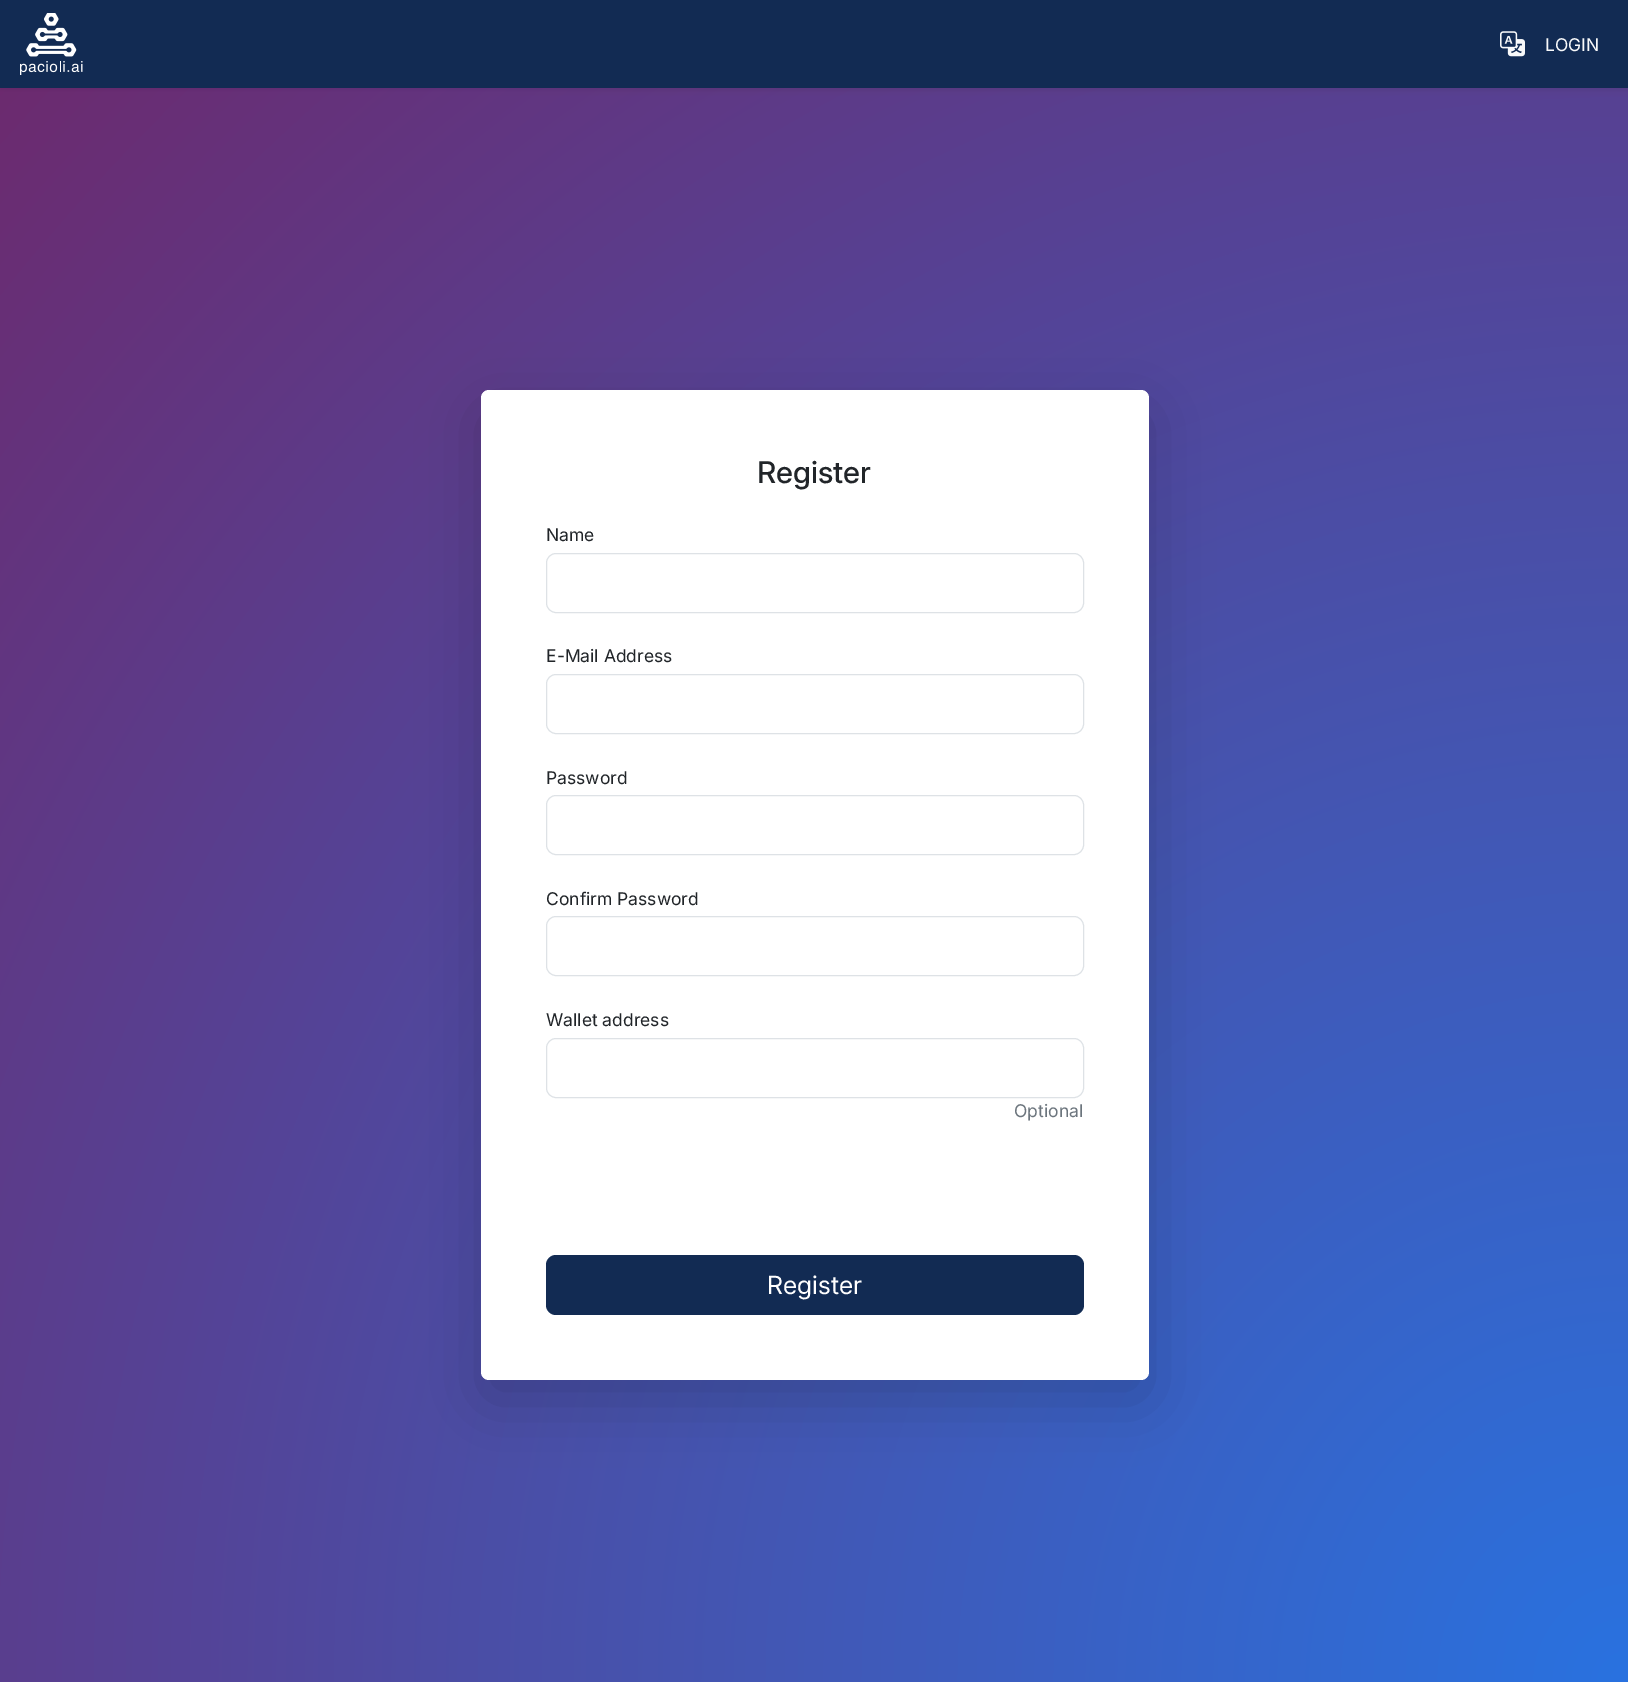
%!PS
<< /PageSize [1628 1682] /PageUsesTransparency true >> setpagedevice
/rgb { dup -16 bitshift 255 div exch dup -8 bitshift 255 and 255 div exch 255 and 255 div setrgbcolor } def
/font { [ exch dup neg 0 0 3 -1 roll 0 0 ] selectfont } def
/text { moveto show } def
/alpha { dup .setfillconstantalpha .setstrokeconstantalpha } def
/roundrect { 5 dict begin { /r /h /w /y /x } { exch def } forall
  x r add y moveto x w add y 2 copy h add r arct x w add y h add x 1 index r arct
  x y h add x y r arct x y 2 copy exch w add exch r arct closepath end } def
/shadow { 12 dict begin { /a /b /q /h /w /y /x } { exch def } forall gsave /was 0 def
  9 -2 -9 { dup b mul 4 div /e exch def 1 sub .425 mul 2.718 exch exp 1 add a .99 .min exch div /now exch def
    1 1 now sub 1 was sub div sub alpha /was now def
    w h .min e 2 mul add 0 gt { x e sub y e sub w e 2 mul add h e 2 mul add
      q e add b .6 mul add w h .min 2 div e add .min 0 .max roundrect fill } if } for grestore end } def
/picture { 5 dict begin { /h /w /y /x /name } { exch def } forall
  gsave x y translate w h scale
  w h 8 [w 0 0 h 0 0] name (r) file false 3 colorimage grestore end } def
0 .pushpdf14devicefilter
0 1682 translate 1 -1 scale
4 setmiterlimit
/s1 { /Inter-Regular 17.5 font 16#F8F9FA rgb } def
/s2 { /Inter-Medium 30 font 16#212529 rgb } def
/s3 { /Inter-Regular 17.5 font 16#212529 rgb } def
/s4 { /Inter-Regular 17.5 font 16#6C757D rgb } def
/s5 { /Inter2-Regular 25 font 16#FFFFFF rgb } def
16#FFFFFF rgb
0 0 1628 1682 rectfill
gsave 0 88 moveto 1628 88 lineto 1628 1682 lineto 0 1682 lineto closepath clip newpath 1629 1683 translate 2303 2379 scale
<< /ShadingType 3 /ColorSpace /DeviceRGB /Coords [0 0 0 0 0 1] /Extend [true true] /Function << /FunctionType 2 /Domain [0 1] /C0 [0.161 0.447 0.878] /C1 [0.431 0.161 0.424] /N 1 >> >> shfill grestore
16#000000 rgb
0 3 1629 87 0 2.5 0.07 shadow
16#122B53 rgb
0 0 1628 88 rectfill
(pic1.raw) 20 13 63 62 picture
(pic2.raw) 1500 31 25 26 picture
s1
(LOGIN) 1545 51 text
16#000000 rgb
481 410 668 990 8 30 0.18 shadow
16#FFFFFF rgb
481 390 668 990 8 roundrect fill
s2
(Register) 757 483 text
s3
(Name) 546 541 text
16#DEE2E6 rgb
546.5 553.5 537 59 9.5 roundrect stroke
s3
(E-Mail Address) 546 662 text
16#DEE2E6 rgb
546.5 674.5 537 59 9.5 roundrect stroke
s3
(Password) 546 784 text
16#DEE2E6 rgb
546.5 795.5 537 59 9.5 roundrect stroke
s3
(Confirm Password) 546 905 text
16#DEE2E6 rgb
546.5 916.5 537 59 9.5 roundrect stroke
s3
(Wallet address) 546 1026 text
16#DEE2E6 rgb
546.5 1038.5 537 59 9.5 roundrect stroke
s4
(Optional) 1014 1117 text
16#122B53 rgb
546 1255 538 60 10 roundrect fill
s5
(Register) 767 1294 text
.poppdf14devicefilter showpage
